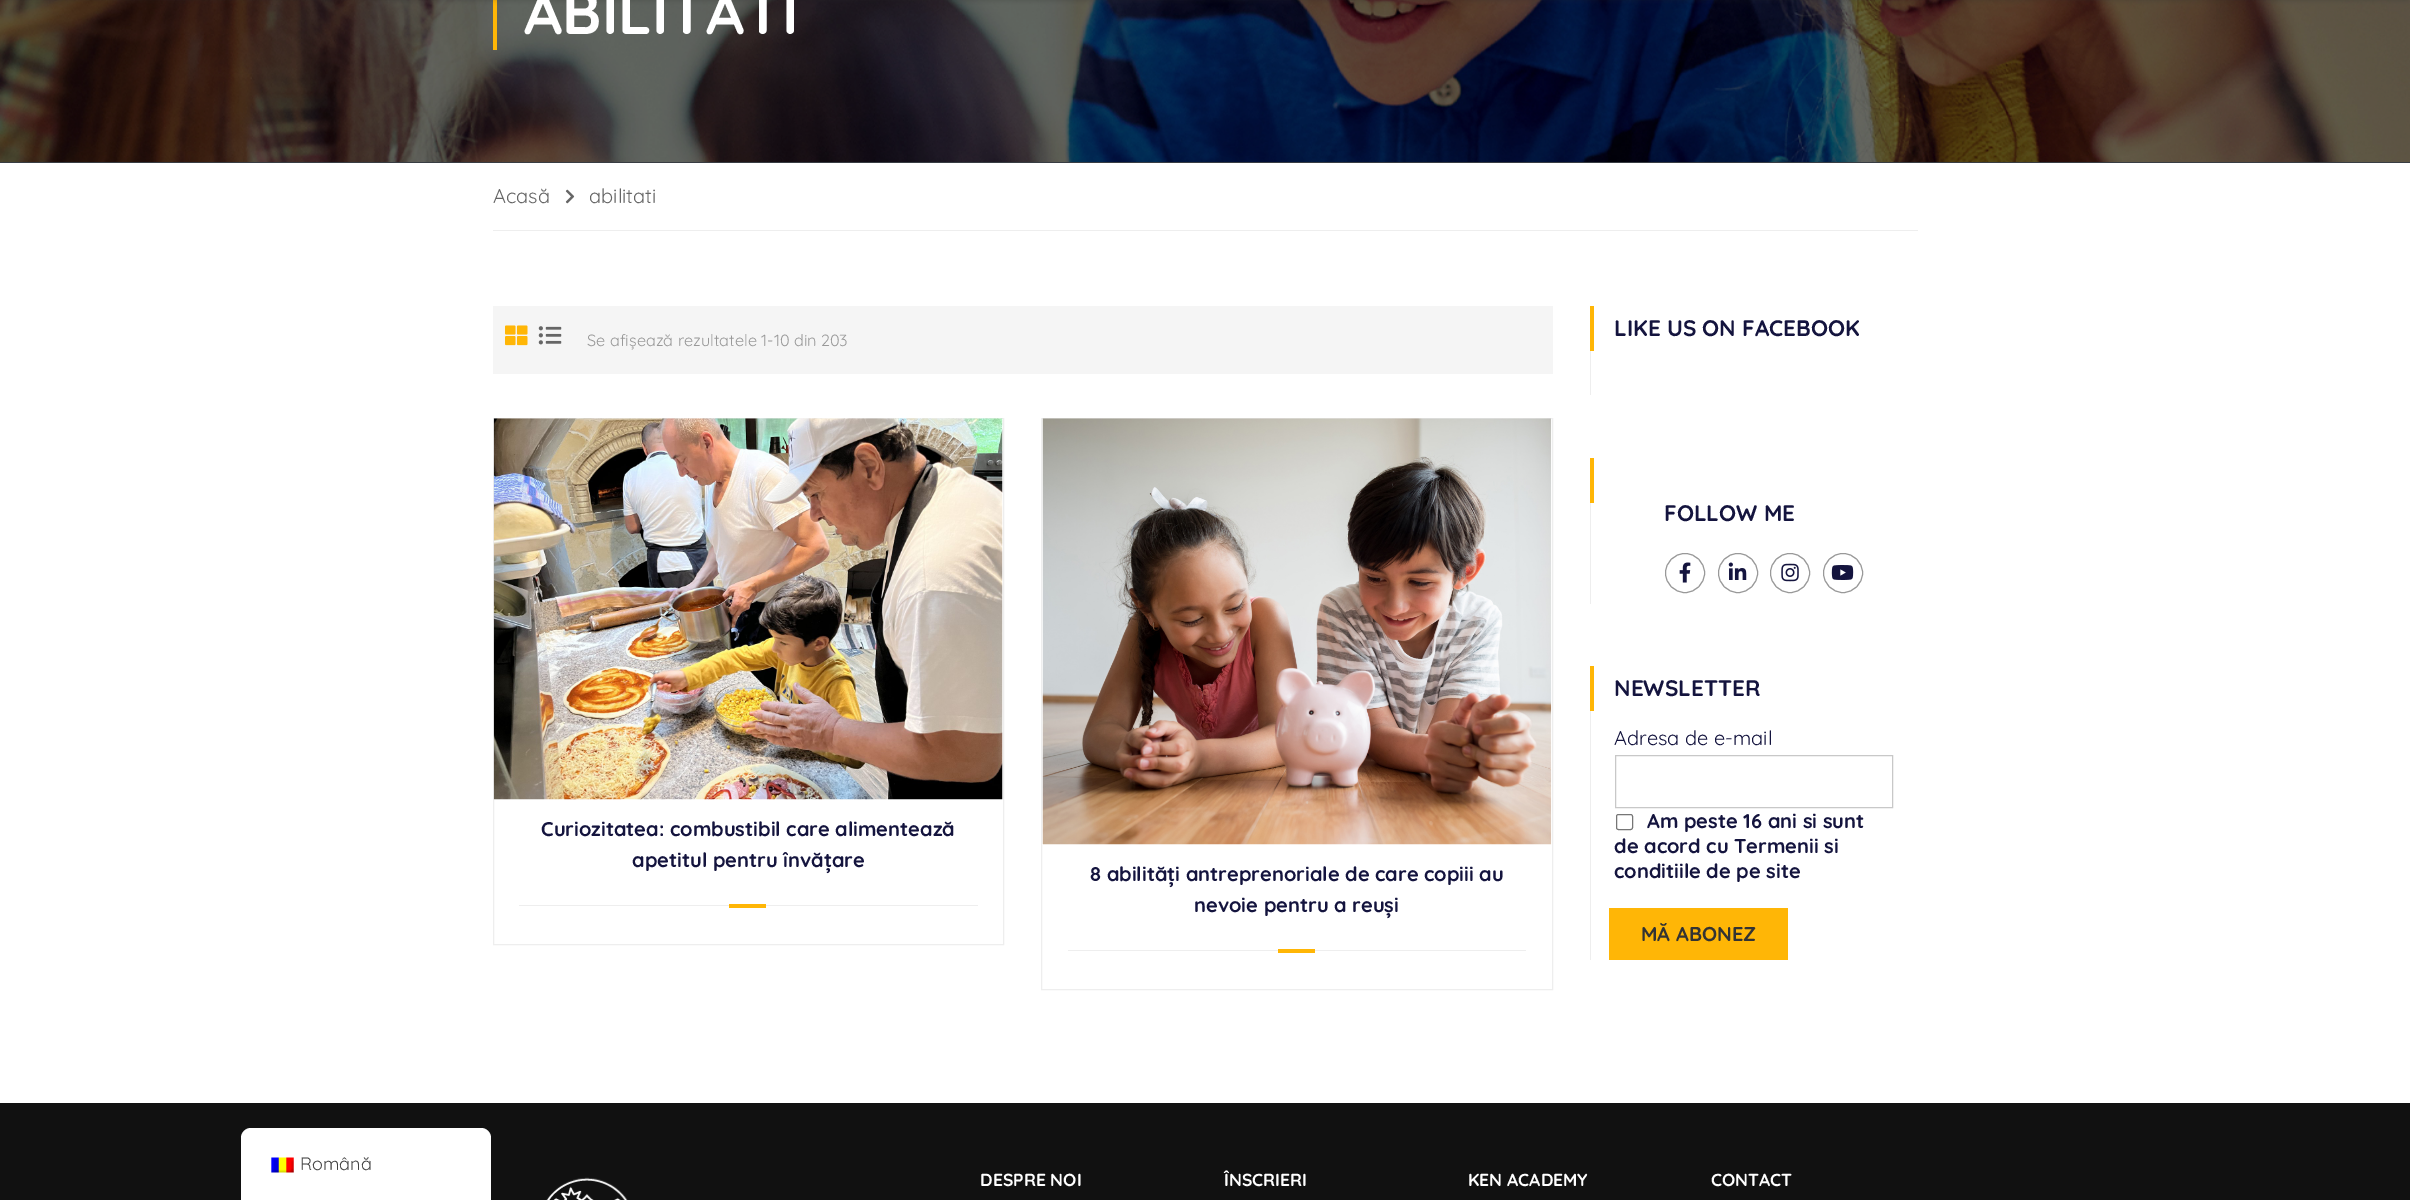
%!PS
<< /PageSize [2410 1200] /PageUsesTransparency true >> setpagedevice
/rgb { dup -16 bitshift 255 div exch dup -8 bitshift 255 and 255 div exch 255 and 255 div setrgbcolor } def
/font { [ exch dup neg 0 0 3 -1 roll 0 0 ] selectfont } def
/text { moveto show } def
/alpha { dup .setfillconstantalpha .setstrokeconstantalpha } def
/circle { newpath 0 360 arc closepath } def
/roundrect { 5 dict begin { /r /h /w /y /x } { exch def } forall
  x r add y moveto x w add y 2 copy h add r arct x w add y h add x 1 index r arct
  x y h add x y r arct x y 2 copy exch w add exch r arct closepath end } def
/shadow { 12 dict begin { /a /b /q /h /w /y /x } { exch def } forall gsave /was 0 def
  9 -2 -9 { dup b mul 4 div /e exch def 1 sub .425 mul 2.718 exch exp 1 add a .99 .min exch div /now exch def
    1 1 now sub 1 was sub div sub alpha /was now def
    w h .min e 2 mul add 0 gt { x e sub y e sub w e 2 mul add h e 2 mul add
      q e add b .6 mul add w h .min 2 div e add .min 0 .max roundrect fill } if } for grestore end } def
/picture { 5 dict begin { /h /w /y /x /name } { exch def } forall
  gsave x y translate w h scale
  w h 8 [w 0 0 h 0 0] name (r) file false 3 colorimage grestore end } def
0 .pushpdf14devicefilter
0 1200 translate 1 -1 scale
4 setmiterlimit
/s1 { /Quicksand-Regular 18 font 16#404040 rgb } def
/s2 { /Quicksand-Bold 60 font 16#FFFFFF rgb } def
/s3 { /Quicksand-Regular 20 font 16#666666 rgb } def
/s4 { /Quicksand-Regular 16.25 font 16#999999 rgb } def
/s5 { /Quicksand-Bold 20 font 16#14143E rgb } def
/s6 { /Quicksand-Bold 22.5 font 16#14143E rgb } def
/s7 { /Quicksand-Regular 20 font 16#14143E rgb } def
/s8 { /Quicksand-Bold 20 font 16#333333 rgb } def
/s9 { /Quicksand-Bold 17.5 font 16#FFFFFF rgb } def
16#FFFFFF rgb
0 0 2410 1200 rectfill
16#111111 rgb
0 1103 2410 97 rectfill
16#FFFFFF rgb
251 1128 moveto 481 1128 lineto 486.5 1128 491 1132.5 491 1138 curveto 491 1200 lineto 241 1200 lineto 241 1138 lineto 241 1132.5 245.5 1128 251 1128 curveto closepath fill
(pic1.raw) 271 1157 23 16 picture
s1
(Română) 300 1170 text
(pic2.raw) 0 0 2410 162 picture
16#FFB606 rgb
493 0 4 50 rectfill
16#2A2A2A rgb
3 -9 2405 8 0 3 0.4 shadow
16#383D43 rgb
0 162 2410 1 rectfill
s2
(ABILITATI) 524 34 text
16#EEEEEE rgb
493 230 1425 1 rectfill
s3
(Acasă) 493 203 text
(pic3.raw) 565 189 10 15 picture
(abilitati) 589 203 text
16#F5F5F5 rgb
493 306 1060 68 rectfill
(pic4.raw) 505 325 23 21 picture
(pic5.raw) 538 326 24 19 picture
s4
(Se afișează rezultatele 1-10 din 203) 587 346 text
16#EEEEEE rgb
493.5 418.5 510 526 rectstroke
(pic6.raw) 493 418 510 382 picture
s5
(Curiozitatea: combustibil care alimentează) 541 836 text
(apetitul pentru învățare) 632 867 text
16#EEEEEE rgb
519 905 459 1 rectfill
16#FFB606 rgb
729 904 37 4 rectfill
16#EEEEEE rgb
1041.5 418.5 511 571 rectstroke
(pic7.raw) 1042 418 510 427 picture
s5
(8 abilități antreprenoriale de care copiii au) 1090 881 text
(nevoie pentru a reuși) 1194 912 text
16#EEEEEE rgb
1068 950 458 1 rectfill
16#FFB606 rgb
1278 949 37 4 rectfill
1590 306 4 45 rectfill
s6
(LIKE US ON FACEBOOK) 1614 336 text
16#EEEEEE rgb
1590 351 1 44 rectfill
16#FFB606 rgb
1590 458 4 45 rectfill
16#EEEEEE rgb
1590 503 1 101 rectfill
s6
(FOLLOW ME) 1664 521 text
16#999999 rgb
1685 573 19.5 circle stroke
(pic8.raw) 1679 562 12 21 picture
1738 573 19.5 circle stroke
(pic9.raw) 1728 562 19 18 picture
1790 573 19.5 circle stroke
(pic10.raw) 1781 563 18 19 picture
1843 573 19.5 circle stroke
(pic11.raw) 1831 565 23 15 picture
16#FFB606 rgb
1590 666 4 45 rectfill
s6
(NEWSLETTER) 1614 696 text
16#EEEEEE rgb
1590 711 1 249 rectfill
s7
(Adresa de e-mail) 1614 745 text
16#C8C8C8 rgb
1615.5 755.5 277 52 rectstroke
16#767676 rgb
1616.5 814.5 16 15 2 roundrect stroke
s5
(Am peste 16 ani si sunt) 1647 828 text
(de acord cu Termenii si) 1614 853 text
(conditiile de pe site) 1614 878 text
16#FFB606 rgb
1609 908 179 52 rectfill
s8
(MĂ ABONEZ) 1641 941 text
(pic12.raw) 546 1177 82 23 picture
s9
(DESPRE NOI) 980 1186 text
(ÎNSCRIERI) 1224 1186 text
(KEN ACADEMY) 1468 1186 text
(CONTACT) 1711 1186 text
.poppdf14devicefilter showpage
